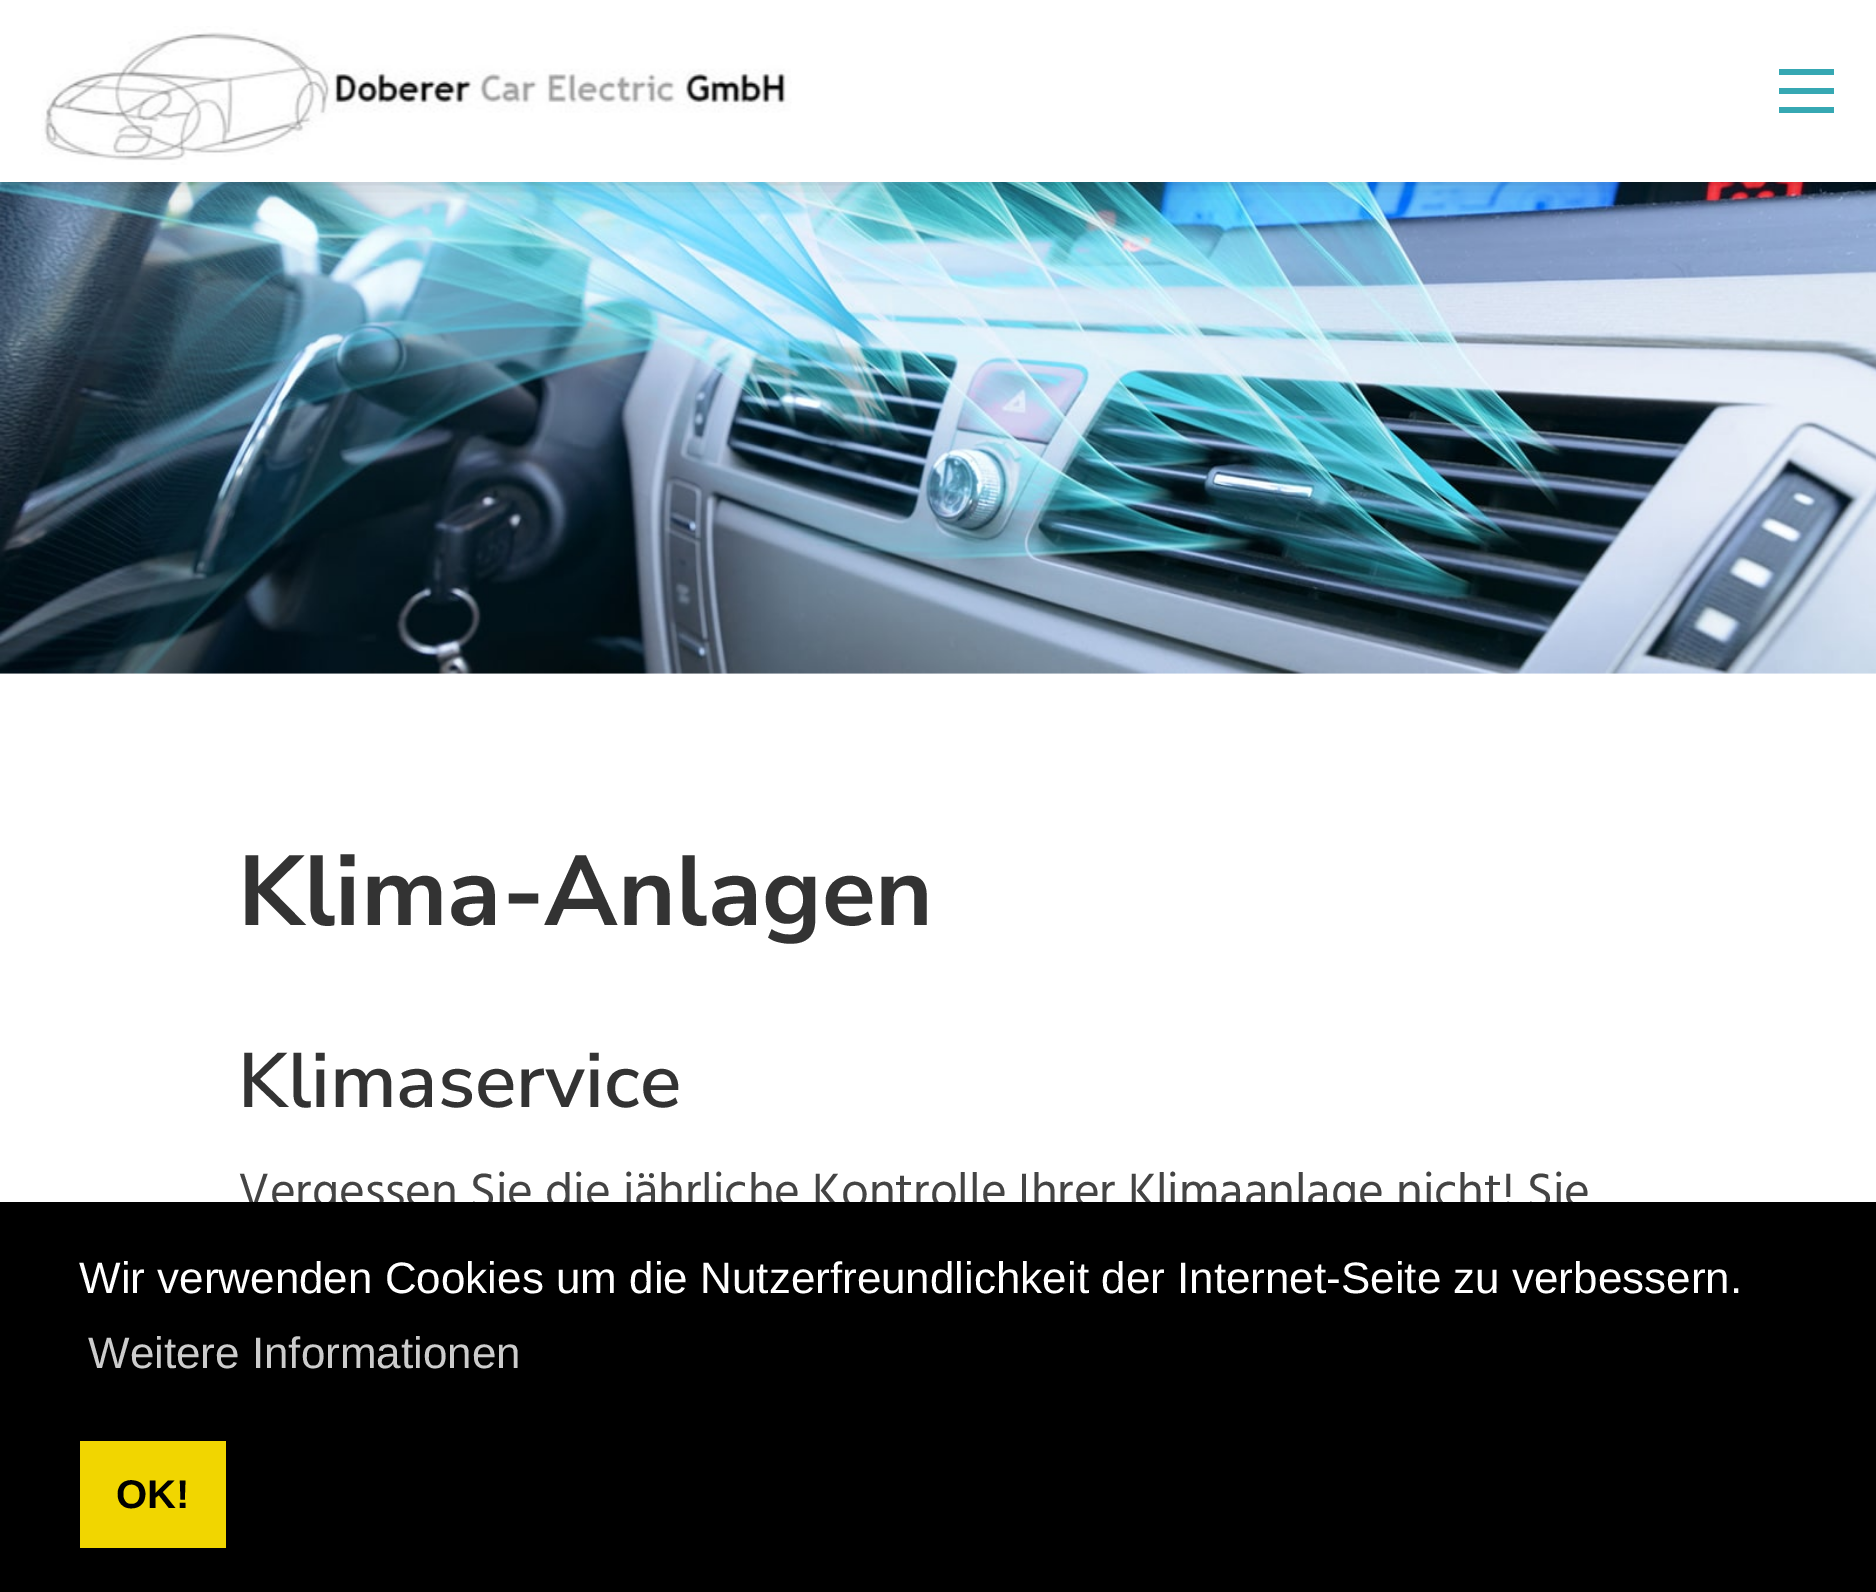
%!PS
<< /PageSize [1876 1592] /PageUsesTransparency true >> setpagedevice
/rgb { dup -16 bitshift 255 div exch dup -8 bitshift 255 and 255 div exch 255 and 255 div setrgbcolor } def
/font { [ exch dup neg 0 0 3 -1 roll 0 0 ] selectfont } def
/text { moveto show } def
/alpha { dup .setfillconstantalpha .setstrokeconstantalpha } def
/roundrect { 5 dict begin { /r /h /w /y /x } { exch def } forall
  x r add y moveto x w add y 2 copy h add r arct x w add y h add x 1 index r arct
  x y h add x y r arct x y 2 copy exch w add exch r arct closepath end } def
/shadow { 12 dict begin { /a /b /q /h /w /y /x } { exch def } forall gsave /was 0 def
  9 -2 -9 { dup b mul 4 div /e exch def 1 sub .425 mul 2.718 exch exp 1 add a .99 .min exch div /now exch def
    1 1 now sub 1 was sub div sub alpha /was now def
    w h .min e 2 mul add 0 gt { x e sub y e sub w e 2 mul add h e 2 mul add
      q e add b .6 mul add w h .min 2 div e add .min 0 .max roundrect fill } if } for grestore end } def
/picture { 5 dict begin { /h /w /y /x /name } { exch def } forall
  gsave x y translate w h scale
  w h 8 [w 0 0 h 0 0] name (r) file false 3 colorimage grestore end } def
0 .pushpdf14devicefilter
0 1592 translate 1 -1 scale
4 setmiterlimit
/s1 { /NunitoSans-Bold 99 font 16#333333 rgb } def
/s2 { /NunitoSans-SemiBold 77 font 16#333333 rgb } def
/s3 { /Hind-Regular 49.5 font 16#444444 rgb } def
/s4 { /LiberationSans-Regular 44 font 16#FFFFFF rgb } def
/s5 { /LiberationSans-Regular 44 font 16#CCCCCC rgb } def
/s6 { /LiberationSans-Bold 40 font 16#000000 rgb } def
16#FFFFFF rgb
0 0 1876 1592 rectfill
(pic2.raw) 0 182 1876 492 picture
16#000000 rgb
0 0 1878 182 0 14 0.2 shadow
16#FFFFFF rgb
0 0 1876 182 rectfill
(pic1.raw) 41 26 751 139 picture
16#36A8B3 rgb
1779 69 55 6 rectfill
1779 88 55 6 rectfill
1779 107 55 6 rectfill
s1
(Klima-Anlagen) 238 925 text
s2
(Klimaservice) 238 1107 text
s3
(Vergessen Sie die jährliche Kontrolle Ihrer Klimaanlage nicht! Sie) 238 1207 text
16#000000 rgb
0 1202 1876 390 rectfill
s4
(Wir verwenden Cookies um die Nutzerfreundlichkeit der Internet-Seite zu verbessern.) 79 1293 text
s5
(Weitere Informationen) 88 1368 text
16#F1D600 rgb
80 1441 146 107 rectfill
s6
(OK!) 116 1508 text
.poppdf14devicefilter showpage
